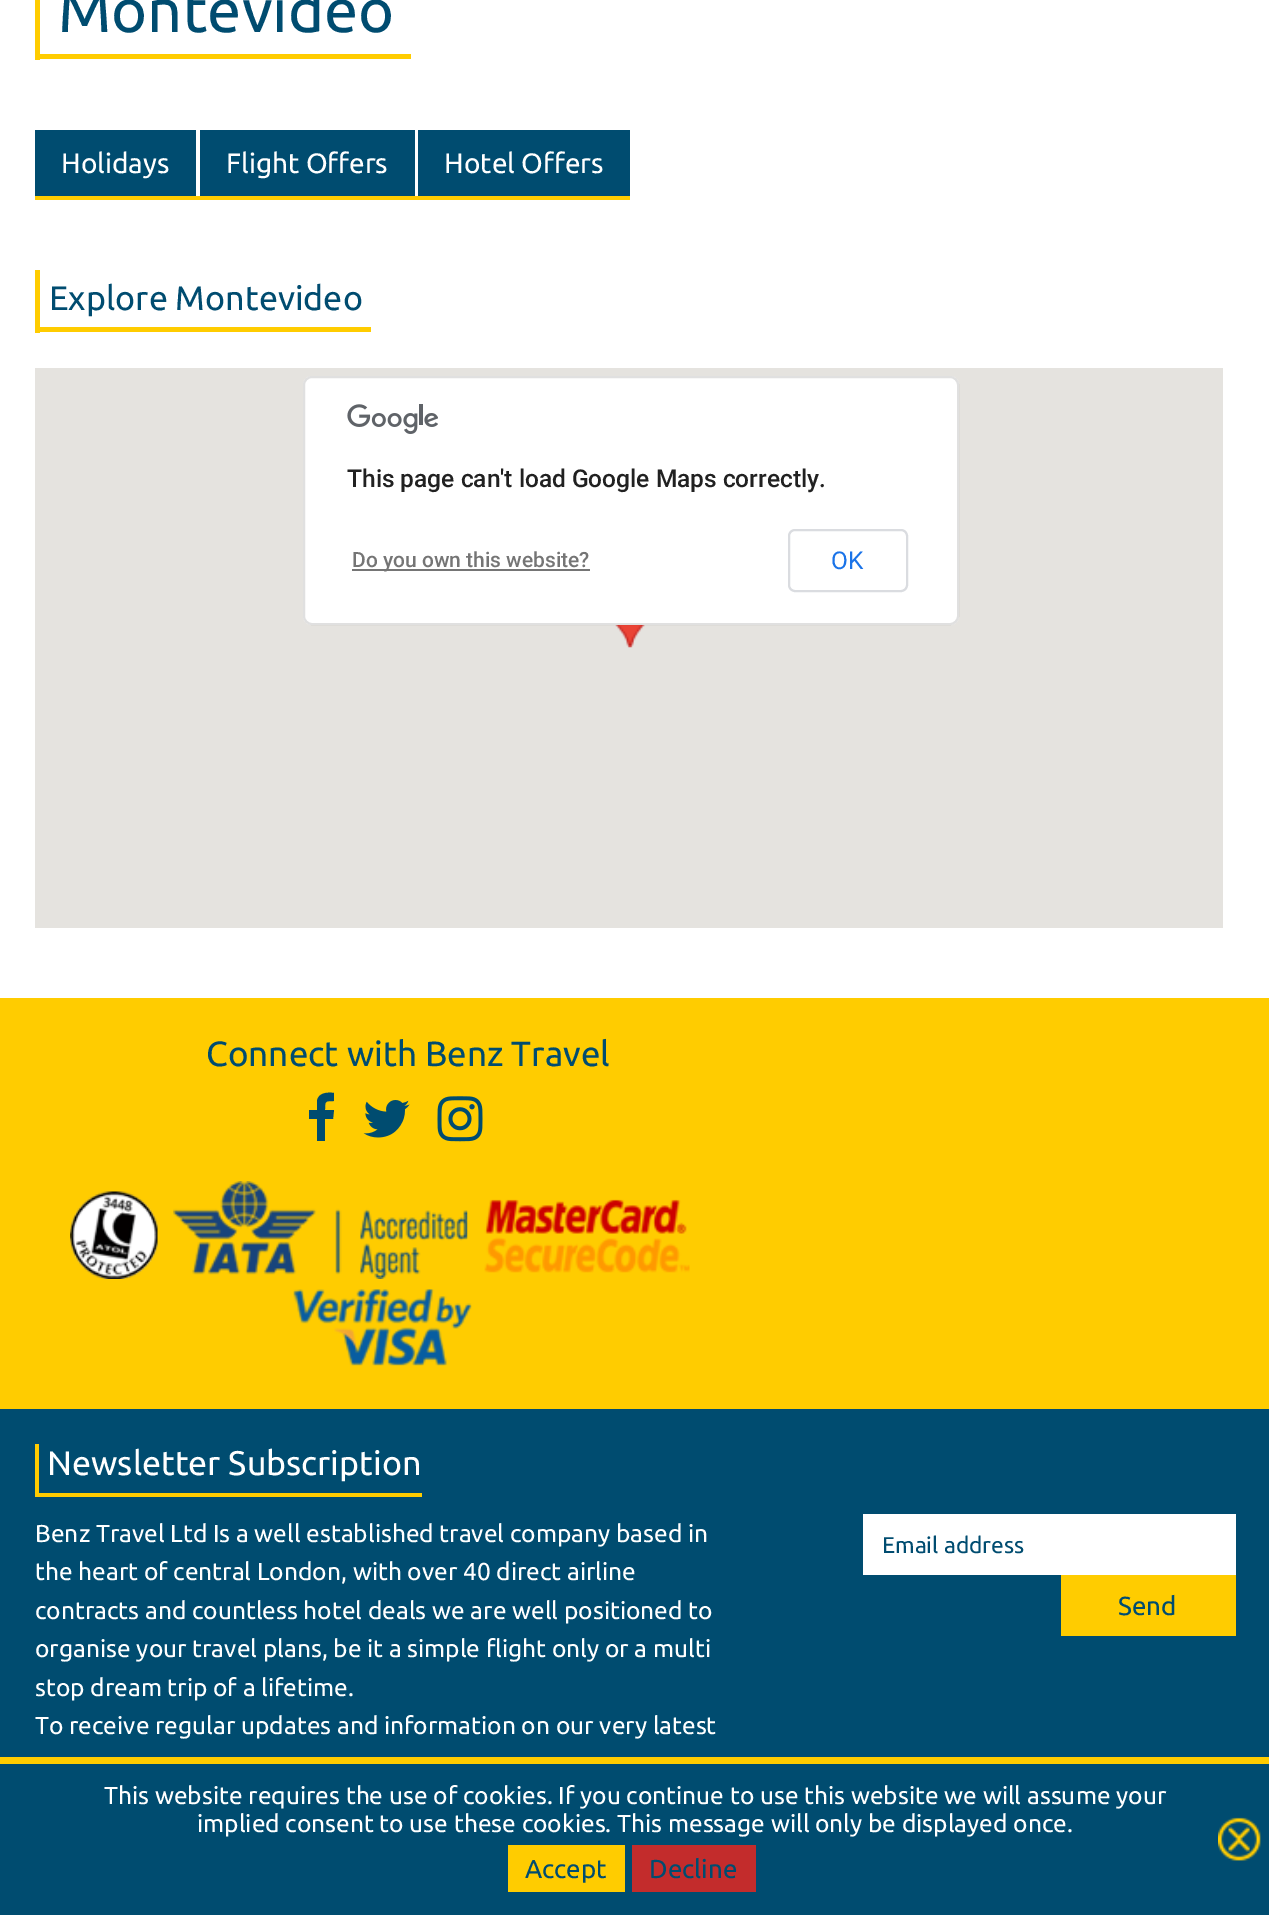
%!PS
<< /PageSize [1269 1915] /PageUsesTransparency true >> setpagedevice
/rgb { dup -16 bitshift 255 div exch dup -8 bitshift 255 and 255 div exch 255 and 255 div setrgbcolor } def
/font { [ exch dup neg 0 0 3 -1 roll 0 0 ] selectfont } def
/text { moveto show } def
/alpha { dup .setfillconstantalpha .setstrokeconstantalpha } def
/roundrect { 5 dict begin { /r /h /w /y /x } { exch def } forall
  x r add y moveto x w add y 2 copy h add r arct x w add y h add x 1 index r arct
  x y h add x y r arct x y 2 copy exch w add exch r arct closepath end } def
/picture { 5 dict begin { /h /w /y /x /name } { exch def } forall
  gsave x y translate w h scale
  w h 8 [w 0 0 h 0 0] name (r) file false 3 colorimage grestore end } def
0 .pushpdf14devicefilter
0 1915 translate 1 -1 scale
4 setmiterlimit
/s1 { /Ubuntu-Regular 61.25 font 16#004C70 rgb } def
/s2 { /Ubuntu-Regular 28 font 16#FFFFFF rgb } def
/s3 { /Ubuntu-Regular 34.1 font 16#004C70 rgb } def
/s4 { /Roboto-Medium 24.5 font 16#212121 rgb } def
/s5 { /Roboto-Medium 21 font 16#757575 rgb } def
/s6 { /Roboto-Regular 24.5 font 16#1A73E8 rgb } def
/s7 { /Ubuntu-Regular 35 font 16#004C70 rgb } def
/s8 { /Ubuntu-Regular 34.1 font 16#FFFFFF rgb } def
/s9 { /Ubuntu-Regular 24.5 font 16#FFFFFF rgb } def
/s10 { /Ubuntu-Regular 22.75 font 16#004C70 rgb } def
/s11 { /Ubuntu-Regular 26 font 16#004C70 rgb } def
16#FFFFFF rgb
0 0 1269 1915 rectfill
16#FFCC00 rgb
35 54 376 5 rectfill
35 0 5 60 rectfill
s1
(Montevideo) 58 32 text
16#FFCC00 rgb
35 196 595 4 rectfill
16#004C70 rgb
35 130 161 66 rectfill
s2
(Holidays) 61 173 text
16#004C70 rgb
200 130 215 66 rectfill
s2
(Flight Offers) 226 173 text
16#004C70 rgb
418 130 212 66 rectfill
s2
(Hotel Offers) 444 173 text
16#FFCC00 rgb
35 327 336 5 rectfill
35 270 5 63 rectfill
s3
(Explore Montevideo) 49 310 text
16#E5E3DF rgb
35 368 1188 560 rectfill
(pic1.raw) 615 625 30 23 picture
16#FFFFFF rgb
303 376 656 249 9 roundrect fill
0.12 alpha
16#000000 rgb
2 setlinewidth
304 377 654 247 8 roundrect stroke
1 alpha
(pic2.raw) 347 404 91 30 picture
s4
(This page can't load Google Maps correctly.) 347 487 text
16#757575 rgb
352 569 238 2 rectfill
s5
(Do you own this website?) 352 567 text
16#DADCE0 rgb
789 530 118 61 6 roundrect stroke
s6
(OK) 831 569 text
16#FFCC00 rgb
0 998 1269 411 rectfill
s7
(Connect with Benz Travel) 206 1066 text
334 1093 moveto 334 1101 lineto 325 1101 325 1101 325 1110 curveto 334 1110 lineto 333 1119 lineto 325 1119 lineto 325 1141 lineto 317 1141 lineto 317 1119 lineto 309 1119 lineto 309 1110 lineto 317 1110 lineto 317 1101 lineto 318 1093 327 1092 334 1093 curveto closepath fill
(pic3.raw) 363 1100 47 38 picture
(pic4.raw) 437 1096 46 46 picture
(pic5.raw) 70 1191 88 88 picture
(pic6.raw) 173 1181 295 98 picture
(pic7.raw) 484 1199 206 74 picture
(pic8.raw) 293 1289 179 77 picture
0 1409 1269 348 rectfill
16#FFCC00 rgb
35 1493 387 4 rectfill
35 1444 4 52 rectfill
s8
(Newsletter Subscription) 47 1475 text
s9
(Benz Travel Ltd Is a well established travel company based in) 35 1542 text
(the heart of central London, with over 40 direct airline) 35 1580 text
(contracts and countless hotel deals we are well positioned to) 35 1619 text
(organise your travel plans, be it a simple flight only or a multi) 35 1657 text
(stop dream trip of a lifetime.) 35 1696 text
(To receive regular updates and information on our very latest) 35 1734 text
863 1514 373 61 rectfill
s10
(Email address) 882 1553 text
16#FFCC00 rgb
1061 1575 175 61 rectfill
s11
(Send) 1118 1615 text
0 1764 1269 151 rectfill
(pic9.raw) 1218 1817 43 44 picture
16#FFCC00 rgb
0 1757 1269 7 rectfill
s9
(This website requires the use of cookies. If you continue to use this website we will assume your) 104 1804 text
(implied consent to use these cookies. This message will only be displayed once.) 197 1832 text
16#FFCC00 rgb
508 1845 117 47 rectfill
s11
(Accept) 525 1878 text
16#C32C2C rgb
632 1845 124 47 rectfill
s11
(Decline) 649 1878 text
.poppdf14devicefilter showpage
